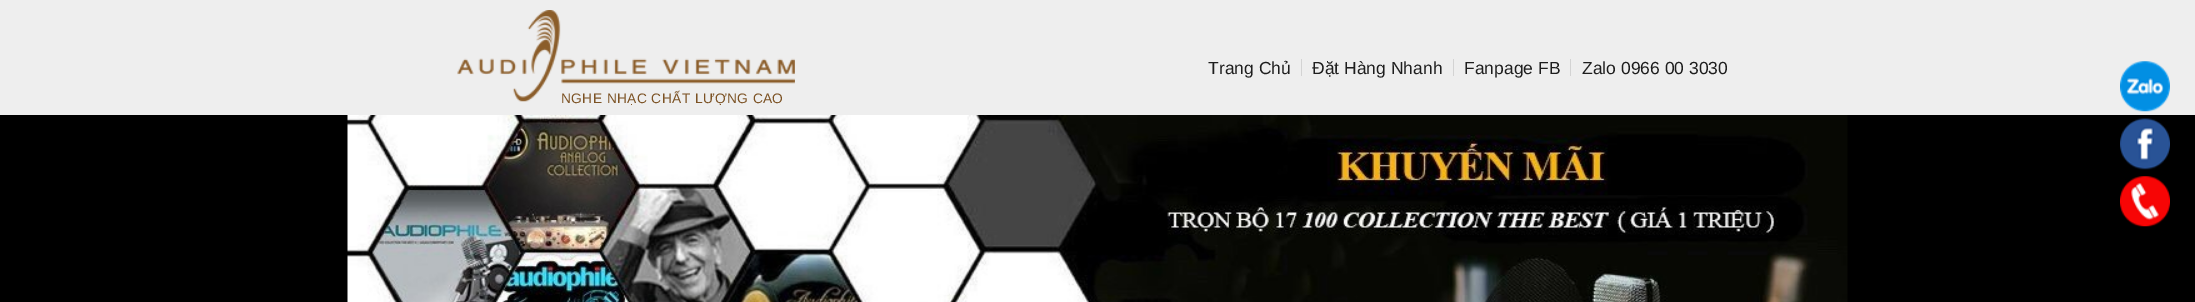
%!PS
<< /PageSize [2195 302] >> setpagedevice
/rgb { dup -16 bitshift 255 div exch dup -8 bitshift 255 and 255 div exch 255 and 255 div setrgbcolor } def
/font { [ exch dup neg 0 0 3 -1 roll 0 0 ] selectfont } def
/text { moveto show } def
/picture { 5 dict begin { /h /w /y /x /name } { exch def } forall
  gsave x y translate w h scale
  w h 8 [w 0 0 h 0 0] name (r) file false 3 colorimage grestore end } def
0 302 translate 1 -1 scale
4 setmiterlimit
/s1 { /LiberationSans-Regular 17.5 font 16#1E1E1E rgb } def
16#EEEEEE rgb
0 0 2195 302 rectfill
16#D3D3D3 rgb
1301 59 1 17 rectfill
s1
(Trang Chủ) 1208 74 text
16#D3D3D3 rgb
1453 59 1 17 rectfill
s1
(Đặt Hàng Nhanh) 1312 74 text
16#D3D3D3 rgb
1570 59 1 17 rectfill
s1
(Fanpage FB) 1464 74 text
(Zalo 0966 00 3030) 1582 74 text
(pic1.raw) 457 10 338 92 picture
/LiberationSans-Regular 13.75 font
16#7C5224 rgb
561 103 moveto 0.4 0 (NGHE NHẠC CHẤT LƯỢNG CAO) ashow
16#000000 rgb
0 115 2195 187 rectfill
(pic2.raw) 347 115 1501 187 picture
(pic3.raw) 2120 61 50 51 picture
(pic4.raw) 2120 118 50 52 picture
(pic5.raw) 2120 176 50 51 picture
showpage
